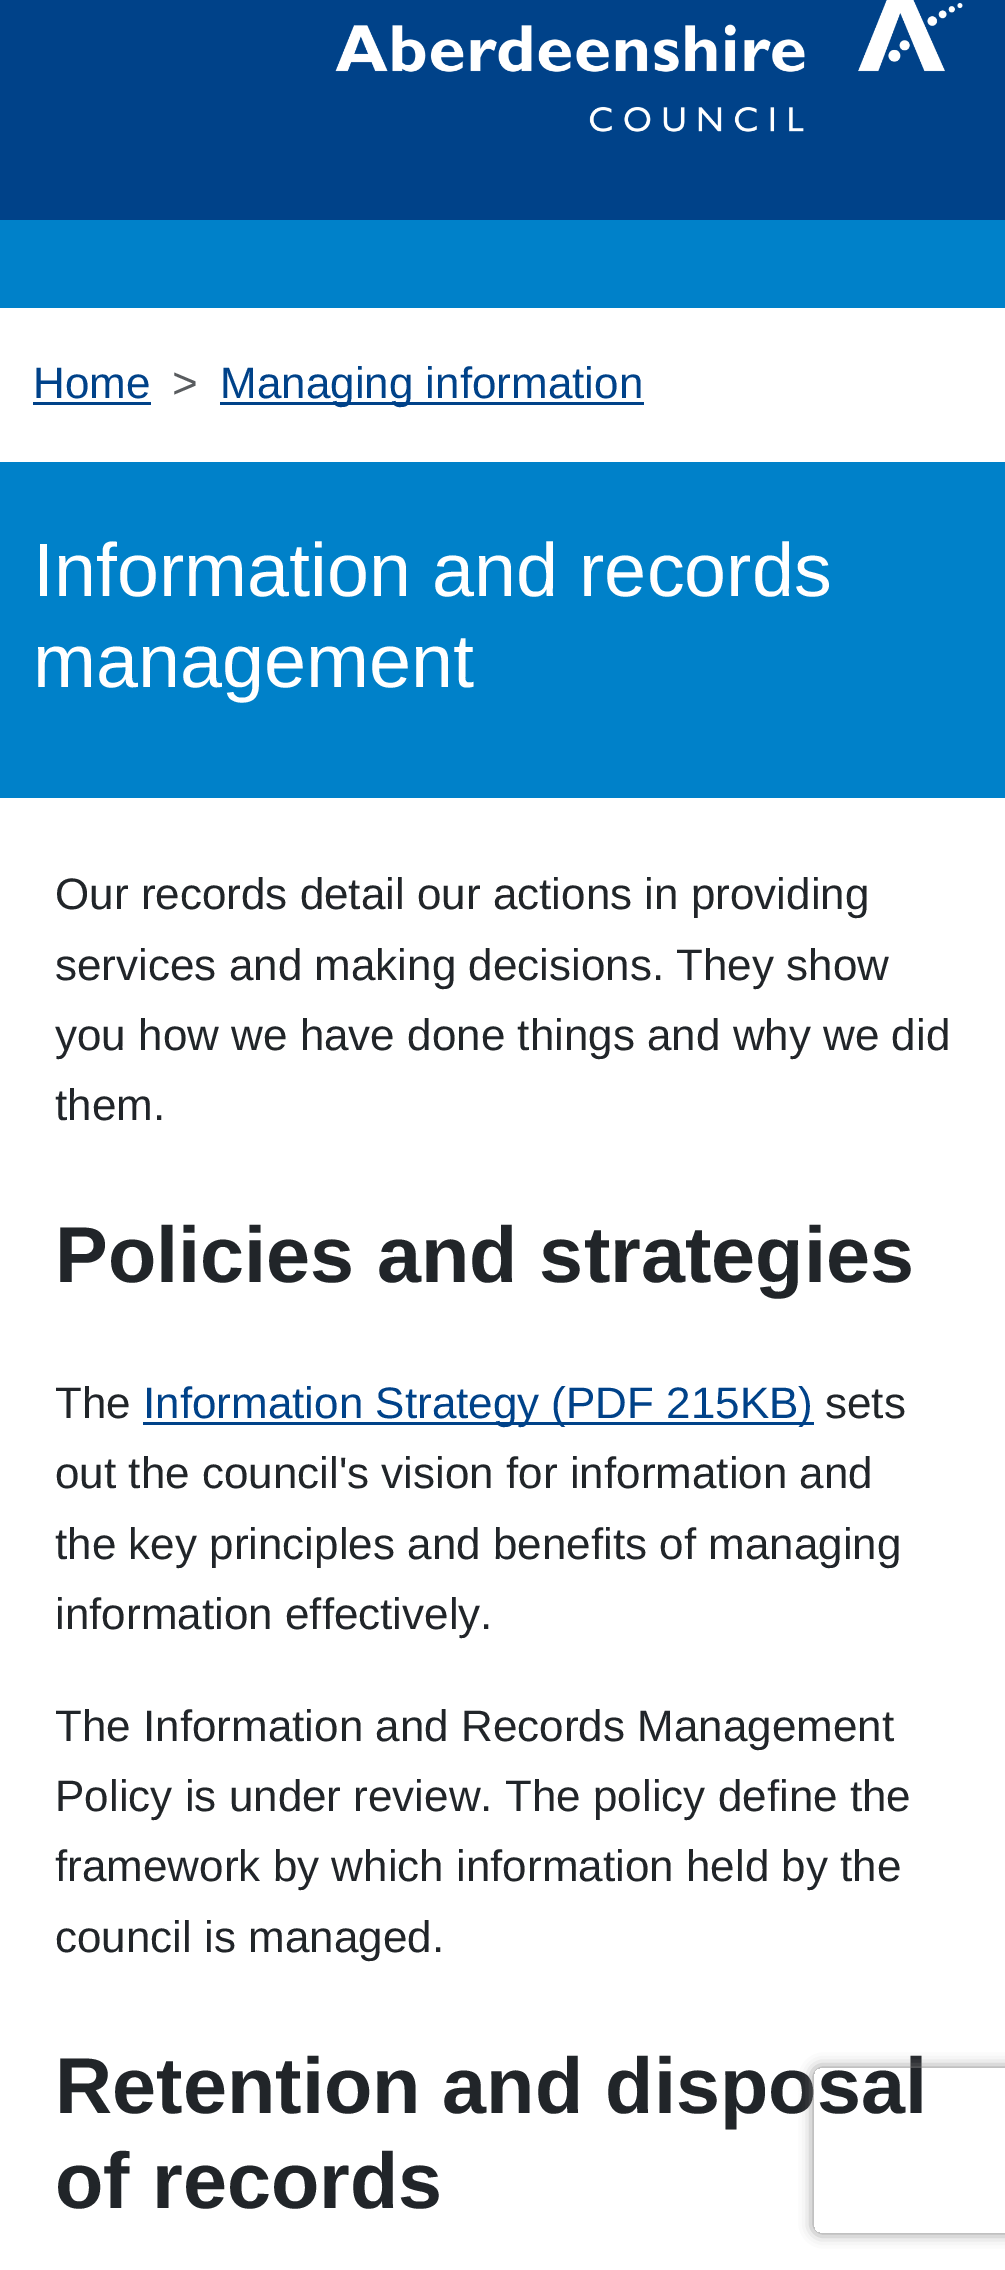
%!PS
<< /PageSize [1005 2270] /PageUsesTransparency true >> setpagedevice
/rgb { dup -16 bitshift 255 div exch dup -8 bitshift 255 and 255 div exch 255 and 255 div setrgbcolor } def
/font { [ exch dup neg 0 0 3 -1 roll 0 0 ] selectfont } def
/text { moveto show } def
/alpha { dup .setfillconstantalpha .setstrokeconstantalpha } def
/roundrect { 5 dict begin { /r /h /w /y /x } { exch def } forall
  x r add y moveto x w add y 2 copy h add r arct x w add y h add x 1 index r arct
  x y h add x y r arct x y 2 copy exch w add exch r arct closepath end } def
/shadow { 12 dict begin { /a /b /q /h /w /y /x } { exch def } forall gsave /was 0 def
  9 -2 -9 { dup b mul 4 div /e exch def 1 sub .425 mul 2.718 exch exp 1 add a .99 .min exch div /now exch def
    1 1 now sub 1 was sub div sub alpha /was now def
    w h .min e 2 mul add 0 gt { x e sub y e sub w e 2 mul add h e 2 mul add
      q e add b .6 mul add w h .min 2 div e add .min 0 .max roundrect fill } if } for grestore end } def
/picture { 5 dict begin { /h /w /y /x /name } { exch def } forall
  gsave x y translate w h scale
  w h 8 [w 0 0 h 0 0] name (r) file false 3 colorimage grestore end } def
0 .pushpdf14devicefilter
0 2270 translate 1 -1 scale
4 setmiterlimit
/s1 { /LiberationSans-Regular 44 font 16#004289 rgb } def
/s2 { /LiberationSans-Regular 44 font 16#595C5F rgb } def
/s3 { /LiberationSans-Regular 75.6 font 16#FFFFFF rgb } def
/s4 { /LiberationSans-Regular 44 font 16#212529 rgb } def
/s5 { /LiberationSans-Bold 79.25 font 16#212529 rgb } def
16#FFFFFF rgb
0 0 1005 2270 rectfill
16#004289 rgb
0 0 1005 220 rectfill
(pic1.raw) 335 0 628 132 picture
16#0081C9 rgb
0 220 1005 88 rectfill
s1
(Home) 33 398 text
33 402 118 3 rectfill
s2
(>) 172 398 text
16#004289 rgb
220 402 424 3 rectfill
(Managing information) 220 398 text
16#0081C9 rgb
0 462 1005 336 rectfill
s3
(Information and records) 33 596 text
(management) 33 687 text
s4
(Our records detail our actions in providing) 55 909 text
(services and making decisions. They show) 55 980 text
(you how we have done things and why we did) 55 1050 text
(them.) 55 1120 text
s5
(Policies and strategies) 55 1282 text
s4
(The) 55 1418 text
16#004289 rgb
143 1422 671 3 rectfill
(Information Strategy \(PDF 215KB\)) 143 1418 text
s4
(sets) 825 1418 text
(out the council's vision for information and) 55 1488 text
(the key principles and benefits of managing) 55 1559 text
(information effectively.) 55 1629 text
(The Information and Records Management) 55 1741 text
(Policy is under review. The policy define the) 55 1811 text
(framework by which information held by the) 55 1881 text
(council is managed.) 55 1952 text
s5
(Retention and disposal) 55 2113 text
(of records) 55 2208 text
gsave
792 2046 moveto 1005 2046 lineto 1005 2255 lineto 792 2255 lineto closepath 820 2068 moveto 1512 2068 lineto 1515.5 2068 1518 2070.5 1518 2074 curveto 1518 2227 lineto 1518 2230.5 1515.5 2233 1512 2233 curveto 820 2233 lineto 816.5 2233 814 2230.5 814 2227 curveto 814 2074 lineto 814 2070.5 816.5 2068 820 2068 curveto closepath eoclip newpath
16#808080 rgb
814 2068 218 165 6 7 1 shadow
grestore
.poppdf14devicefilter showpage
